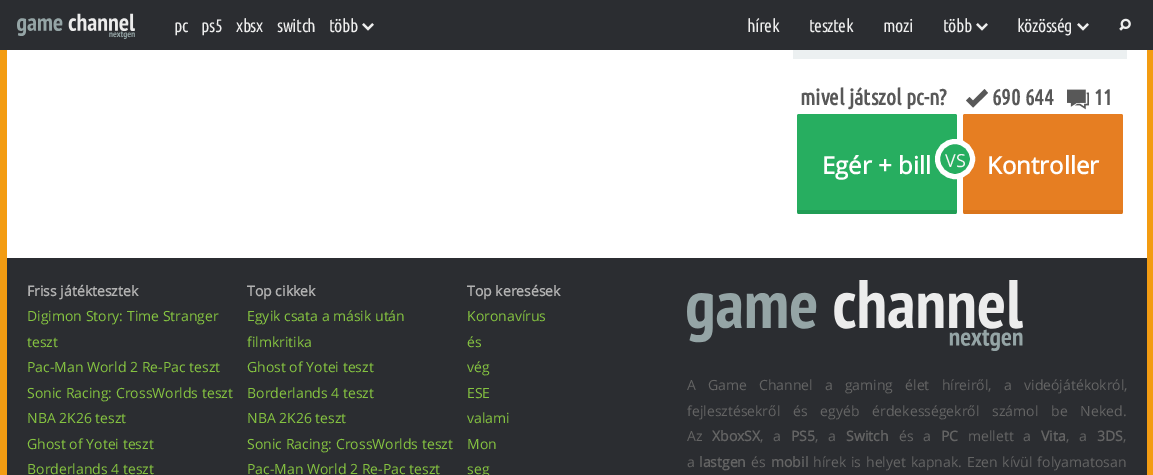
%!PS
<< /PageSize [1153 475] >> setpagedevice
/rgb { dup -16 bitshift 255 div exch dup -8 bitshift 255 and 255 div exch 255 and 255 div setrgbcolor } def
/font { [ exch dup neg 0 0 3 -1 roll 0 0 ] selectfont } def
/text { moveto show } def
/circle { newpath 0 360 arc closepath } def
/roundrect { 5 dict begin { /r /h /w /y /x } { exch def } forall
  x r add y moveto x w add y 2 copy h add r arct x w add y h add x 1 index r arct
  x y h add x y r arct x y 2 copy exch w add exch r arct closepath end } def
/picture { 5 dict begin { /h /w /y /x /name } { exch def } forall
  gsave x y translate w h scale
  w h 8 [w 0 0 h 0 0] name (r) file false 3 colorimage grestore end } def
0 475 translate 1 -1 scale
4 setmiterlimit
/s1 { /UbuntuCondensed-Bold 22 font 16#585858 rgb } def
/s2 { /OpenSans-Bold 24 font 16#FFFFFF rgb } def
/s3 { /OpenSans-Regular 18 font 16#F5F5F5 rgb } def
/s4 { /OpenSans-Bold 14 font 16#B2B2B2 rgb } def
/s5 { /OpenSans-Regular 14 font 16#85C341 rgb } def
/s6 { /OpenSans-Regular 14 font 16#646464 rgb } def
/s7 { /OpenSans-Bold 14 font 16#646464 rgb } def
16#F39C12 rgb
0 0 1153 475 rectfill
16#2B2D31 rgb
0 0 1153 50 rectfill
(pic1.raw) 17 13 118 26 picture
/UbuntuCondensed-Regular 18 font
16#EEEEEE rgb
174 32 moveto -0.5 0 (pc) ashow
201 32 moveto -0.5 0 (ps5) ashow
236 32 moveto -0.5 0 (xbsx) ashow
277 32 moveto -0.5 0 (switch) ashow
329 32 moveto -0.5 0 (több) ashow
(pic2.raw) 362 23 12 8 picture
747 32 moveto -0.5 0 (hírek) ashow
809 32 moveto -0.5 0 (tesztek) ashow
883 32 moveto -0.5 0 (mozi) ashow
943 32 moveto -0.5 0 (több) ashow
(pic2.raw) 976 23 12 8 picture
1017 32 moveto -0.5 0 (közösség) ashow
(pic2.raw) 1077 23 12 8 picture
(pic3.raw) 1119 18 12 13 picture
16#FFFFFF rgb
7 50 1140 208 rectfill
16#ECF0F1 rgb
793 50 334 9 rectfill
s1
(mivel játszol pc-n?) 800 105 text
984.5 89 moveto 973 100.5 lineto 969.5 97 lineto 966 100.5 lineto 973 107.5 lineto 988 93 lineto closepath fill
(690 644) 992 105 text
(pic4.raw) 1067 89 22 21 picture
(11) 1094 105 text
16#27AE60 rgb
797 114 160 100 2 roundrect fill
16#219D55 rgb
797 210 160 2 rectfill
798 212 158 2 rectfill
s2
(Egér + bill) 822 174 text
16#E67E22 rgb
963 114 160 100 2 roundrect fill
16#27AE60 rgb
955 159 17.5 circle gsave fill grestore
16#FFFFFF rgb
5 setlinewidth
stroke
s3
(VS) 945 167 text
16#DA751C rgb
963 210 160 2 rectfill
964 212 158 2 rectfill
s2
(Kontroller) 987 174 text
16#2B2D31 rgb
7 258 1140 217 rectfill
s4
(Friss játéktesztek) 27 296 text
s5
(Digimon Story: Time Stranger) 27 321 text
(teszt) 27 347 text
(Pac-Man World 2 Re-Pac teszt) 27 372 text
(Sonic Racing: CrossWorlds teszt) 27 398 text
(NBA 2K26 teszt) 27 423 text
(Ghost of Yotei teszt) 27 449 text
(Borderlands 4 teszt) 27 474 text
s4
(Top cikkek) 247 296 text
s5
(Egyik csata a másik után) 247 321 text
(filmkritika) 247 347 text
(Ghost of Yotei teszt) 247 372 text
(Borderlands 4 teszt) 247 398 text
(NBA 2K26 teszt) 247 423 text
(Sonic Racing: CrossWorlds teszt) 247 449 text
(Pac-Man World 2 Re-Pac teszt) 247 474 text
s4
(Top keresések) 467 296 text
s5
(Koronavírus) 467 321 text
(és) 467 347 text
(vég) 467 372 text
(ESE) 467 398 text
(valami) 467 423 text
(Mon) 467 449 text
(seg) 467 474 text
(pic5.raw) 687 280 336 71 picture
16#646464 rgb
687 390 moveto 8.5 0 32 (A Game Channel a gaming élet híreiről, a videójátékokról,) widthshow
687 416 moveto 9.25 0 32 (fejlesztésekről és egyéb érdekességekről számol be Neked.) widthshow
(Az) 687 441 text
s7
(XboxSX) 712 441 text
/OpenSans-Regular 14 font
760 441 moveto 6 0 32 (, a) widthshow
s7
(PS5) 791 441 text
/OpenSans-Regular 14 font
815 441 moveto 6 0 32 (, a) widthshow
s7
(Switch) 846 441 text
/OpenSans-Regular 14 font
899 441 moveto 6 0 32 (és a) widthshow
s7
(PC) 941 441 text
/OpenSans-Regular 14 font
968 441 moveto 6 0 32 (mellett a) widthshow
s7
(Vita) 1041 441 text
/OpenSans-Regular 14 font
1066 441 moveto 6 0 32 (, a) widthshow
s7
(3DS) 1097 441 text
s6
(,) 1123 441 text
(a) 687 467 text
s7
(lastgen) 699 467 text
s6
(és) 751 467 text
s7
(mobil) 771 467 text
/OpenSans-Regular 14 font
813 467 moveto 1.25 0 32 (hírek is helyet kapnak. Ezen kívül folyamatosan) widthshow
showpage
